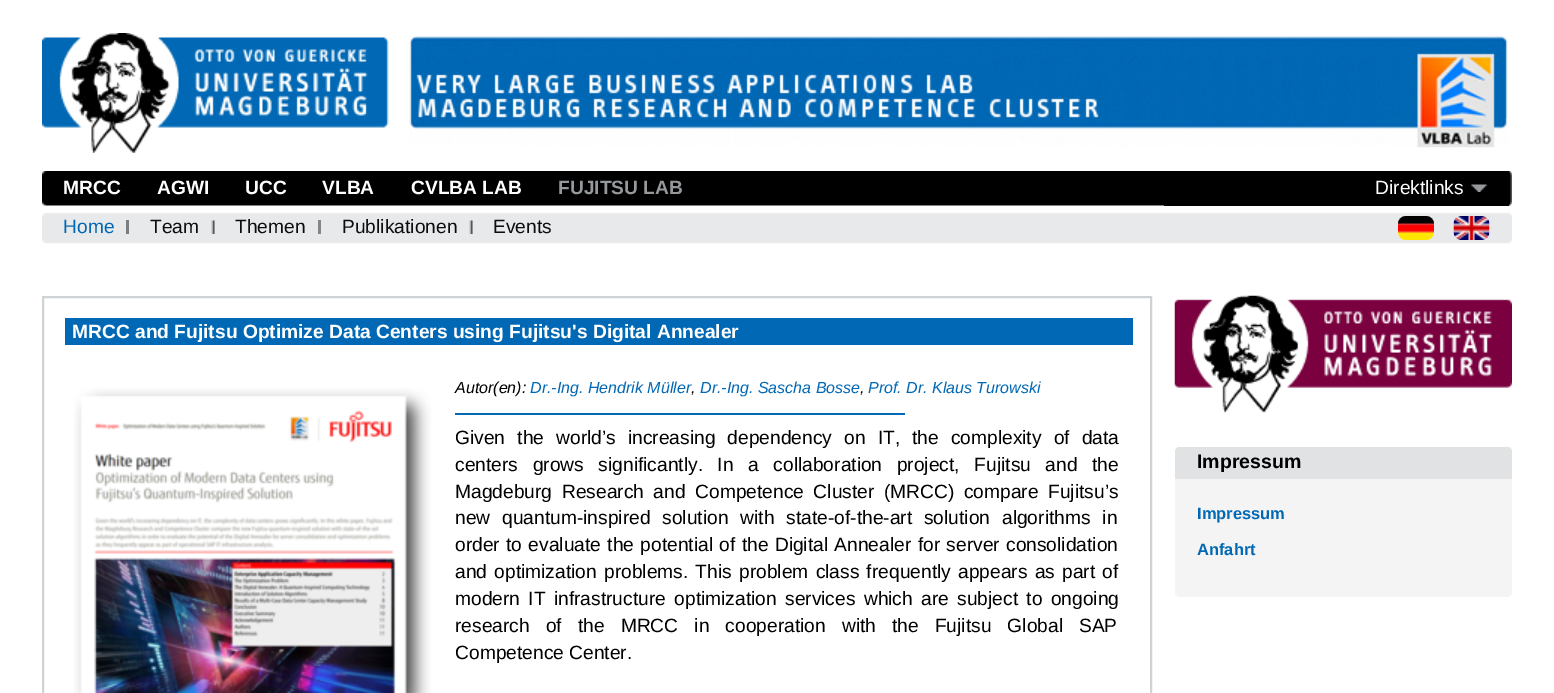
%!PS
<< /PageSize [1554 693] >> setpagedevice
/rgb { dup -16 bitshift 255 div exch dup -8 bitshift 255 and 255 div exch 255 and 255 div setrgbcolor } def
/font { [ exch dup neg 0 0 3 -1 roll 0 0 ] selectfont } def
/text { moveto show } def
/roundrect { 5 dict begin { /r /h /w /y /x } { exch def } forall
  x r add y moveto x w add y 2 copy h add r arct x w add y h add x 1 index r arct
  x y h add x y r arct x y 2 copy exch w add exch r arct closepath end } def
/picture { 5 dict begin { /h /w /y /x /name } { exch def } forall
  gsave x y translate w h scale
  w h 8 [w 0 0 h 0 0] name (r) file false 3 colorimage grestore end } def
0 693 translate 1 -1 scale
4 setmiterlimit
/s1 { /LiberationSans-Bold 19.2 font 16#FFFFFF rgb } def
/s2 { /LiberationSans-Bold 19.2 font 16#96999C rgb } def
/s3 { /LiberationSans-Regular 19.2 font 16#0068B4 rgb } def
/s4 { /LiberationSans-Regular 19.2 font 16#0D0D0D rgb } def
/s5 { /LiberationSans-Regular 19.2 font 16#FFFFFF rgb } def
/s6 { /LiberationSans-Italic 16 font 16#000000 rgb } def
/s7 { /LiberationSans-Italic 16 font 16#0068B4 rgb } def
/s8 { /LiberationSans-Regular 19.2 font 16#000000 rgb } def
/s9 { /LiberationSans-Bold 19.5 font 16#000000 rgb } def
/s10 { /LiberationSans-Bold 16.5 font 16#0068B4 rgb } def
16#FFFFFF rgb
0 0 1554 693 rectfill
(pic1.raw) 42 33 347 120 picture
(pic2.raw) 409 35 1099 113 picture
(pic3.raw) 42 171 1470 75 picture
s1
(MRCC) 63 194 text
s2
(FUJITSU LAB) 558 194 text
16#7C7D7E rgb
126 220 3 14 rectfill
s3
(Home) 63 233 text
(pic4.raw) 211 220 4 14 picture
s4
(Team) 150 233 text
16#838586 rgb
318 220 3 14 rectfill
s4
(Themen) 235 233 text
(pic4.raw) 469 220 4 14 picture
(Publikationen) 342 233 text
(Events) 493 233 text
s1
(AGWI) 157 194 text
(UCC) 245 194 text
(VLBA) 322 194 text
(CVLBA LAB) 411 194 text
16#000000 rgb
1164 171 345 35 rectfill
(pic5.raw) 1471 184 16 8 picture
s5
(Direktlinks) 1375 194 text
(pic6.raw) 1398 216 36 24 picture
(pic7.raw) 1453 216 37 24 picture
16#CFD3D6 rgb
2 setlinewidth
43 297 1108 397 rectstroke
16#0068B4 rgb
65 318 1068 27 rectfill
s1
(MRCC and Fujitsu Optimize Data Centers using Fujitsu's Digital Annealer) 72 338 text
(pic8.raw) 74 388 357 305 picture
s6
(Autor\(en\):) 455 393 text
s7
(Dr.-Ing. Hendrik Müller) 530 393 text
s6
(,) 691 393 text
s7
(Dr.-Ing. Sascha Bosse) 700 393 text
s6
(,) 860 393 text
s7
(Prof. Dr. Klaus Turowski) 868 393 text
455 413 450 2 rectfill
/LiberationSans-Regular 19.2 font
16#000000 rgb
455 444 moveto 6.75 0 32 (Given the world’s increasing dependency on IT, the complexity of data) widthshow
455 471 moveto 9.25 0 32 (centers grows significantly. In a collaboration project, Fujitsu and the) widthshow
455 498 moveto 4.25 0 32 (Magdeburg Research and Competence Cluster \(MRCC\) compare Fujitsu’s) widthshow
455 524 moveto 6.5 0 32 (new quantum-inspired solution with state-of-the-art solution algorithms in) widthshow
455 551 moveto 1 0 32 (order to evaluate the potential of the Digital Annealer for server consolidation) widthshow
455 578 moveto 1.9 0 32 (and optimization problems. This problem class frequently appears as part of) widthshow
455 605 moveto 3 0 32 (modern IT infrastructure optimization services which are subject to ongoing) widthshow
455 632 moveto 10.75 0 32 (research of the MRCC in cooperation with the Fujitsu Global SAP) widthshow
(Competence Center.) 455 659 text
(pic9.raw) 1174 295 338 118 picture
16#F4F4F4 rgb
1175 447 337 150 5 roundrect fill
16#E0E2E3 rgb
1180 447 moveto 1507 447 lineto 1510 447 1512 449 1512 452 curveto 1512 480 lineto 1175 480 lineto 1175 452 lineto 1175 449 1177 447 1180 447 curveto closepath fill
16#F4F4F4 rgb
1175 479 337 1 rectfill
s9
(Impressum) 1197 468 text
s10
(Impressum) 1197 519 text
(Anfahrt) 1197 555 text
showpage
